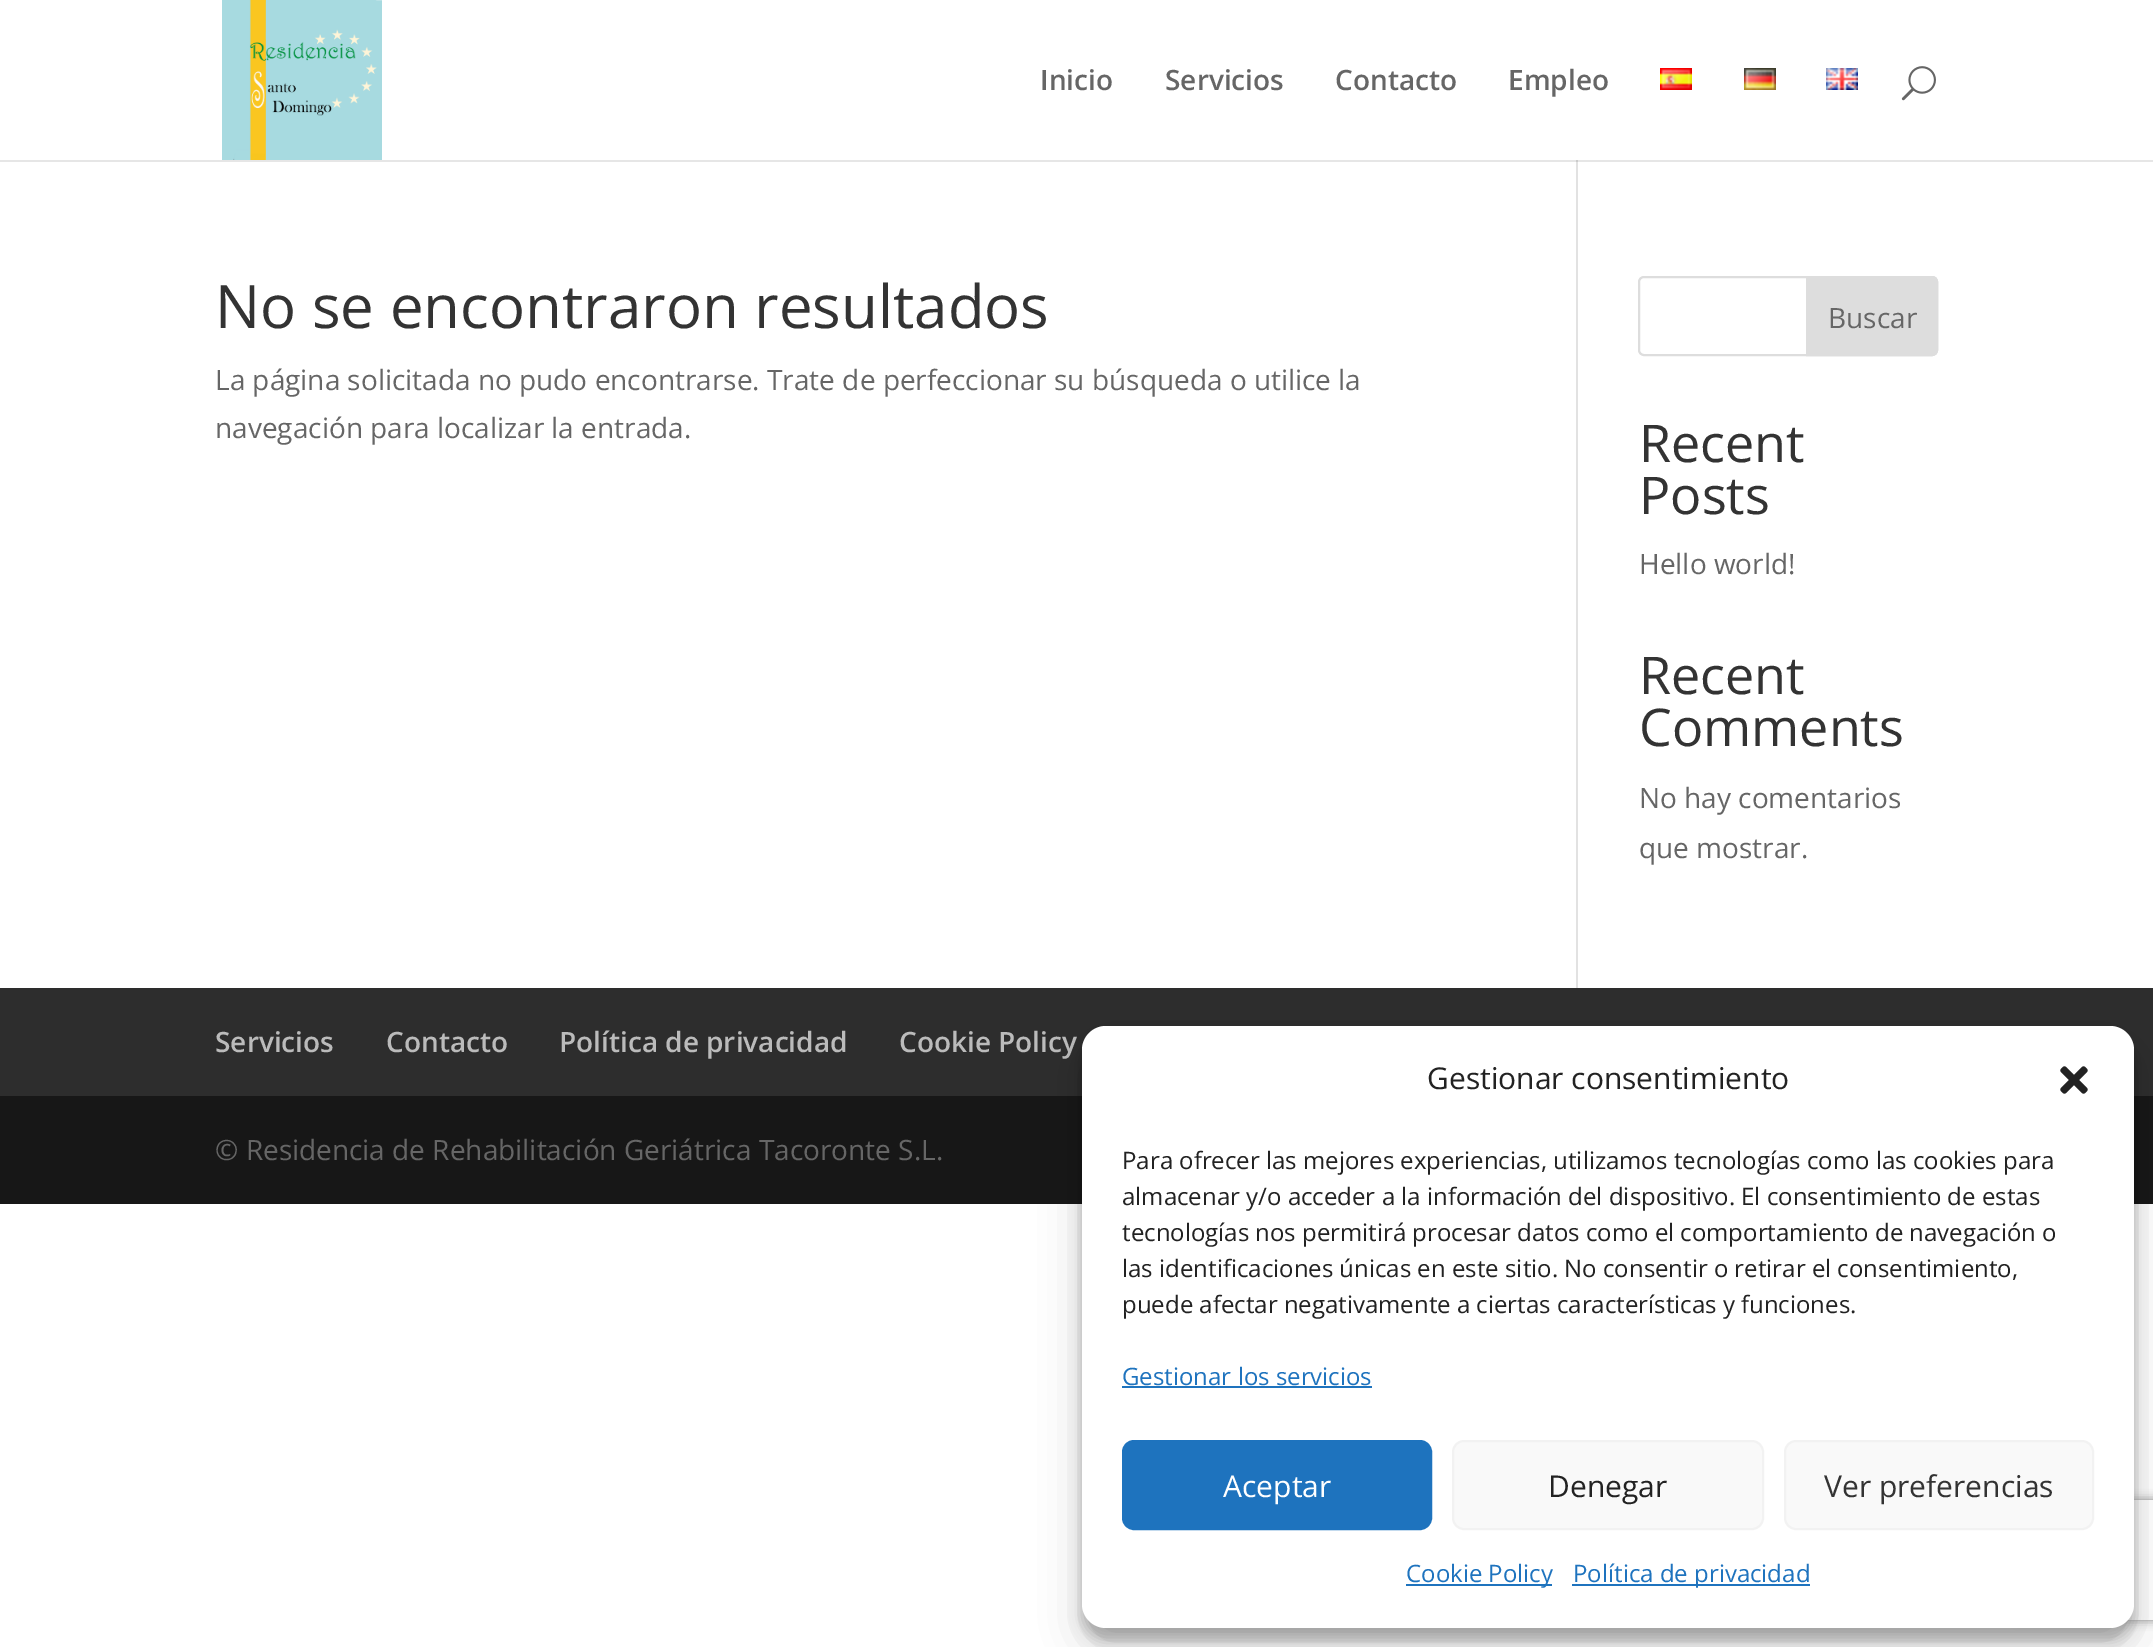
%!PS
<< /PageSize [2153 1647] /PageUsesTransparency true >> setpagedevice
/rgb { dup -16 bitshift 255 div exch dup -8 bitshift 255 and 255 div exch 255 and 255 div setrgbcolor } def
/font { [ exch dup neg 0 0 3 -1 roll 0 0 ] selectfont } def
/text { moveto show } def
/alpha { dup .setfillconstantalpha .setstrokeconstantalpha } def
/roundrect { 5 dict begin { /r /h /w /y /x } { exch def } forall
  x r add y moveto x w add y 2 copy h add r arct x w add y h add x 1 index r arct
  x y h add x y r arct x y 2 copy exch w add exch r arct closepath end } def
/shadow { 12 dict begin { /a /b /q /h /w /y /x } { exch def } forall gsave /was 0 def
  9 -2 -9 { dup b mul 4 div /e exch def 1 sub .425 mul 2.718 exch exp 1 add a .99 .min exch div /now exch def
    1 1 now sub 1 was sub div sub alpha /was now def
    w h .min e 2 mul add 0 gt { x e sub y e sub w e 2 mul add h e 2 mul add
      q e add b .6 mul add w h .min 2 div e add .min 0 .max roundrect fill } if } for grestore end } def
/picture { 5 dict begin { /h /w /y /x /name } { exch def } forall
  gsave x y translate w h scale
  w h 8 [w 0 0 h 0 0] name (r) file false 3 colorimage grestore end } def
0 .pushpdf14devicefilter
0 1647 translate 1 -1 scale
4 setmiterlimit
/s1 { /OpenSans-SemiBold 28 font 16#666666 rgb } def
/s2 { /OpenSans-Regular 60 font 16#333333 rgb } def
/s3 { /OpenSans-Regular 28 font 16#666666 rgb } def
/s4 { /OpenSans-Regular 52 font 16#333333 rgb } def
/s5 { /OpenSans-SemiBold 28 font 16#BBBBBB rgb } def
/s6 { /OpenSans-Regular 30 font 16#222222 rgb } def
/s7 { /OpenSans-Regular 24 font 16#222222 rgb } def
/s8 { /OpenSans-Regular 24 font 16#1E73BE rgb } def
/s9 { /OpenSans-Regular 30 font 16#FFFFFF rgb } def
/s10 { /OpenSans-Regular 30 font 16#333333 rgb } def
16#FFFFFF rgb
0 0 2153 1647 rectfill
16#E6E6E6 rgb
0 160 2153 2 rectfill
(pic1.raw) 222 0 160 160 picture
s1
(Inicio) 1040 90 text
(Servicios) 1165 90 text
(Contacto) 1335 90 text
(Empleo) 1508 90 text
(pic2.raw) 1660 68 32 22 picture
(pic3.raw) 1744 68 32 22 picture
(pic4.raw) 1826 68 32 22 picture
(pic5.raw) 1901 66 35 35 picture
16#E2E2E2 rgb
1576 160 2 828 rectfill
16#CBCBCB rgb
1576 160 2 2 rectfill
s2
(No se encontraron resultados) 215 328 text
s3
(La página solicitada no pudo encontrarse. Trate de perfeccionar su búsqueda o utilice la) 215 390 text
(navegación para localizar la entrada.) 215 438 text
16#DDDDDD rgb
2 setlinewidth
1639 277 298 78 5 roundrect stroke
1807 277 moveto 1932 277 lineto 1935 277 1937 279 1937 282 curveto 1937 350 lineto 1937 353 1935 355 1932 355 curveto 1807 355 lineto closepath gsave fill grestore
stroke
s3
(Buscar) 1828 328 text
s4
(Recent) 1639 462 text
(Posts) 1639 514 text
s3
(Hello world!) 1639 574 text
s4
(Recent) 1639 694 text
(Comments) 1639 746 text
s3
(No hay comentarios) 1639 808 text
(que mostrar.) 1639 858 text
16#2D2D2D rgb
0 988 2153 108 rectfill
s5
(Servicios) 215 1052 text
(Contacto) 386 1052 text
(Política de privacidad) 559 1052 text
(Cookie Policy) 899 1052 text
16#171717 rgb
0 1096 2153 108 rectfill
s3
(© Residencia de Rehabilitación Geriátrica Tacoronte S.L.) 215 1160 text
16#000000 rgb
1082 1038 1052 602 24 6 0.23 shadow
1082 1046 1052 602 24 20 0.19 shadow
gsave
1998 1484 moveto 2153 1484 lineto 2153 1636 lineto 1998 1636 lineto closepath 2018 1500 moveto 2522 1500 lineto 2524 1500 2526 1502 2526 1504 curveto 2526 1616 lineto 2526 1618 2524 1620 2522 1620 curveto 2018 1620 lineto 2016 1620 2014 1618 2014 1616 curveto 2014 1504 lineto 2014 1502 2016 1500 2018 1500 curveto closepath eoclip newpath
16#808080 rgb
2014 1500 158 120 4 5 1 shadow
grestore
16#FFFFFF rgb
1082 1026 1052 602 24 roundrect fill
s6
(Gestionar consentimiento) 1427 1089 text
(pic6.raw) 2060 1066 28 28 picture
s7
(Para ofrecer las mejores experiencias, utilizamos tecnologías como las cookies para) 1122 1169 text
(almacenar y/o acceder a la información del dispositivo. El consentimiento de estas) 1122 1205 text
(tecnologías nos permitirá procesar datos como el comportamiento de navegación o) 1122 1241 text
(las identificaciones únicas en este sitio. No consentir o retirar el consentimiento,) 1122 1277 text
(puede afectar negativamente a ciertas características y funciones.) 1122 1313 text
s8
(Gestionar los servicios) 1122 1385 text
1122 1386 250 2 rectfill
1123 1441 308 88 11 roundrect gsave fill grestore
stroke
s9
(Aceptar) 1223 1497 text
16#F9F9F9 rgb
1453 1441 310 88 11 roundrect gsave fill grestore
16#F2F2F2 rgb
stroke
s6
(Denegar) 1548 1497 text
16#F9F9F9 rgb
1785 1441 308 88 11 roundrect gsave fill grestore
16#F2F2F2 rgb
stroke
s10
(Ver preferencias) 1824 1497 text
16#1E73BE rgb
1406 1584 146 2 rectfill
s8
(Cookie Policy) 1406 1582 text
1572 1584 238 2 rectfill
(Política de privacidad) 1573 1582 text
.poppdf14devicefilter showpage
